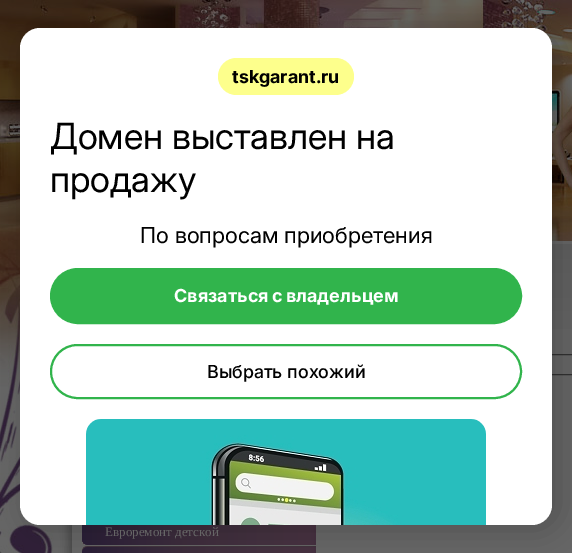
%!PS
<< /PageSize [572 553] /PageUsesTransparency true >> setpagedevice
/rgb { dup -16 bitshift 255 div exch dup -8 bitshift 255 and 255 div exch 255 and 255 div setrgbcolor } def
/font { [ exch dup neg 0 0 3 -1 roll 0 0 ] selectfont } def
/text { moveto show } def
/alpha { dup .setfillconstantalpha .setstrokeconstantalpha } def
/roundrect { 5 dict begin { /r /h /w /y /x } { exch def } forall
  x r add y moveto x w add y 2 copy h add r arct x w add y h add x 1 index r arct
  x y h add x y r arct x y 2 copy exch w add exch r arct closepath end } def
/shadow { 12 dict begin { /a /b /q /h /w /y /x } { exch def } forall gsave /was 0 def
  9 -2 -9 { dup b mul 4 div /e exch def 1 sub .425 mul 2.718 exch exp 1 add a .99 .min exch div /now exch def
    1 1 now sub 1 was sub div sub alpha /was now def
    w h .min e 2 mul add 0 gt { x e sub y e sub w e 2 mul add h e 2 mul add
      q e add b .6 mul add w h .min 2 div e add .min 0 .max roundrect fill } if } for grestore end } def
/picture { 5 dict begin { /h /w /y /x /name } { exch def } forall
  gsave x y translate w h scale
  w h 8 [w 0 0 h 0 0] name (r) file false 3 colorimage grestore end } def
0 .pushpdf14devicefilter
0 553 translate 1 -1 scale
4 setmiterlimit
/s1 { /Inter-Bold 18 font 16#000000 rgb } def
/s2 { /Inter-Regular 36 font 16#000000 rgb } def
/s3 { /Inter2-Regular 22 font 16#000000 rgb } def
/s4 { /Inter-Medium 18 font 16#000000 rgb } def
/s5 { /LiberationSerif-Regular 13 font 16#666666 rgb } def
16#666666 rgb
0 0 572 553 rectfill
(pic2.raw) 0 0 572 241 picture
(pic3.raw) 552 244 20 85 picture
16#2F2F2F rgb
338.5 354.5 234 20 rectstroke
(pic4.raw) 0 241 316 312 picture
(pic5.raw) 72 525 244 28 picture
(pic6.raw) 46 525 26 28 picture
(pic7.raw) 82 540 234 5 picture
(pic8.raw) 82 525 234 15 picture
(pic9.raw) 82 546 234 5 picture
(pic10.raw) 82 551 234 2 picture
16#000000 rgb
27 32 532 497 20 15 0.2 shadow
16#FFFFFF rgb
20 28 532 497 20 roundrect fill
16#FDFF8C rgb
218 58 136 37 18.5 roundrect fill
s1
(tskgarant.ru) 232 83 text
s2
(Домен выставлен на) 50 149 text
(продажу) 50 192 text
s3
(По вопросам приобретения) 140 243 text
16#31B44C rgb
51 269 470 54 27 roundrect gsave fill grestore
2 setlinewidth
stroke
/Inter2-Bold 18 font
16#FFFFFF rgb
174 302 moveto -1 0 32 (Связаться с владельцем) widthshow
16#31B44C rgb
51 345 470 53 26.5 roundrect stroke
s4
(Выбрать похожий) 207 378 text
(pic1.raw) 86 419 400 106 picture
s5
(Евроремонт детской) 105 536 text
.poppdf14devicefilter showpage
